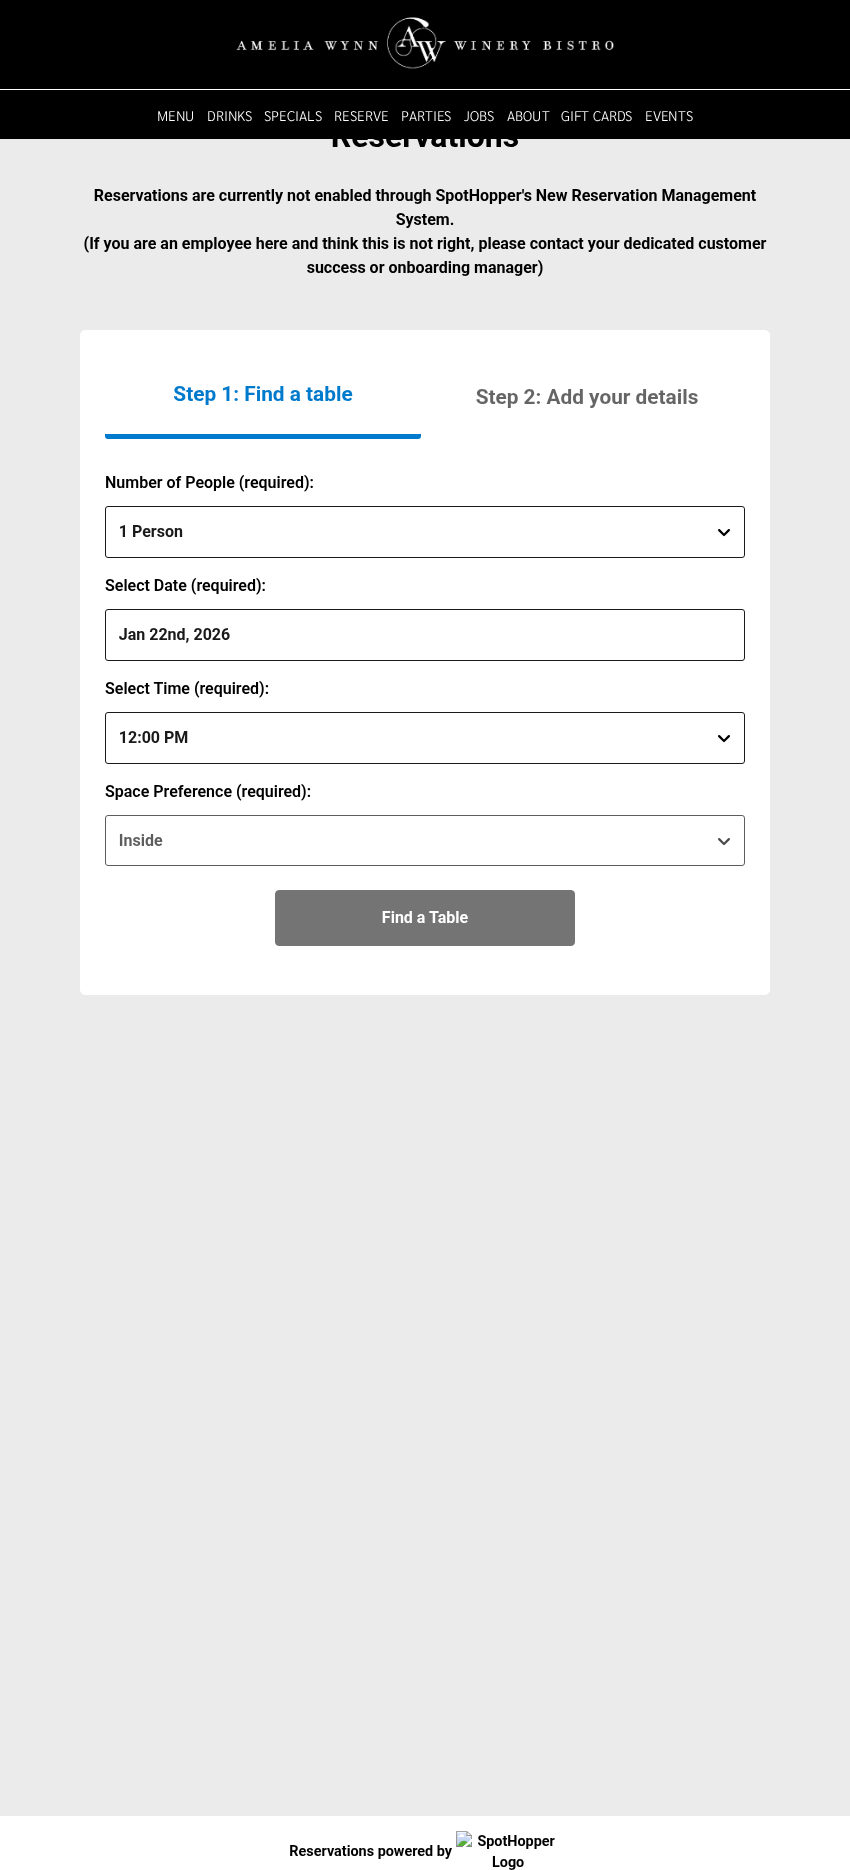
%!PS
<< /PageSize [850 1870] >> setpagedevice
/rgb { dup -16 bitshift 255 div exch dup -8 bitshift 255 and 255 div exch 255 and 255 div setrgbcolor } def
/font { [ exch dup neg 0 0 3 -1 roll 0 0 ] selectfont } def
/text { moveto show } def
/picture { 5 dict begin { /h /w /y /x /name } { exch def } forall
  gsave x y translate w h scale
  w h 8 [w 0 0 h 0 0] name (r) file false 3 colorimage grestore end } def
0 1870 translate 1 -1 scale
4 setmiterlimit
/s1 { /Sarabun-Light 14 font 16#FFFFFF rgb } def
16#FFFFFF rgb
0 0 850 1870 rectfill
16#000000 rgb
0 0 850 89 rectfill
(pic1.raw) 236 17 378 52 picture
0 90 850 49 rectfill
s1
(MENU) 157 121 text
(DRINKS) 207 121 text
(SPECIALS) 264 121 text
(RESERVE) 334 121 text
(PARTIES) 401 121 text
(JOBS) 464 121 text
(ABOUT) 507 121 text
(GIFT CARDS) 561 121 text
(EVENTS) 645 121 text
(pic2.raw) 0 139 850 1731 picture
showpage
